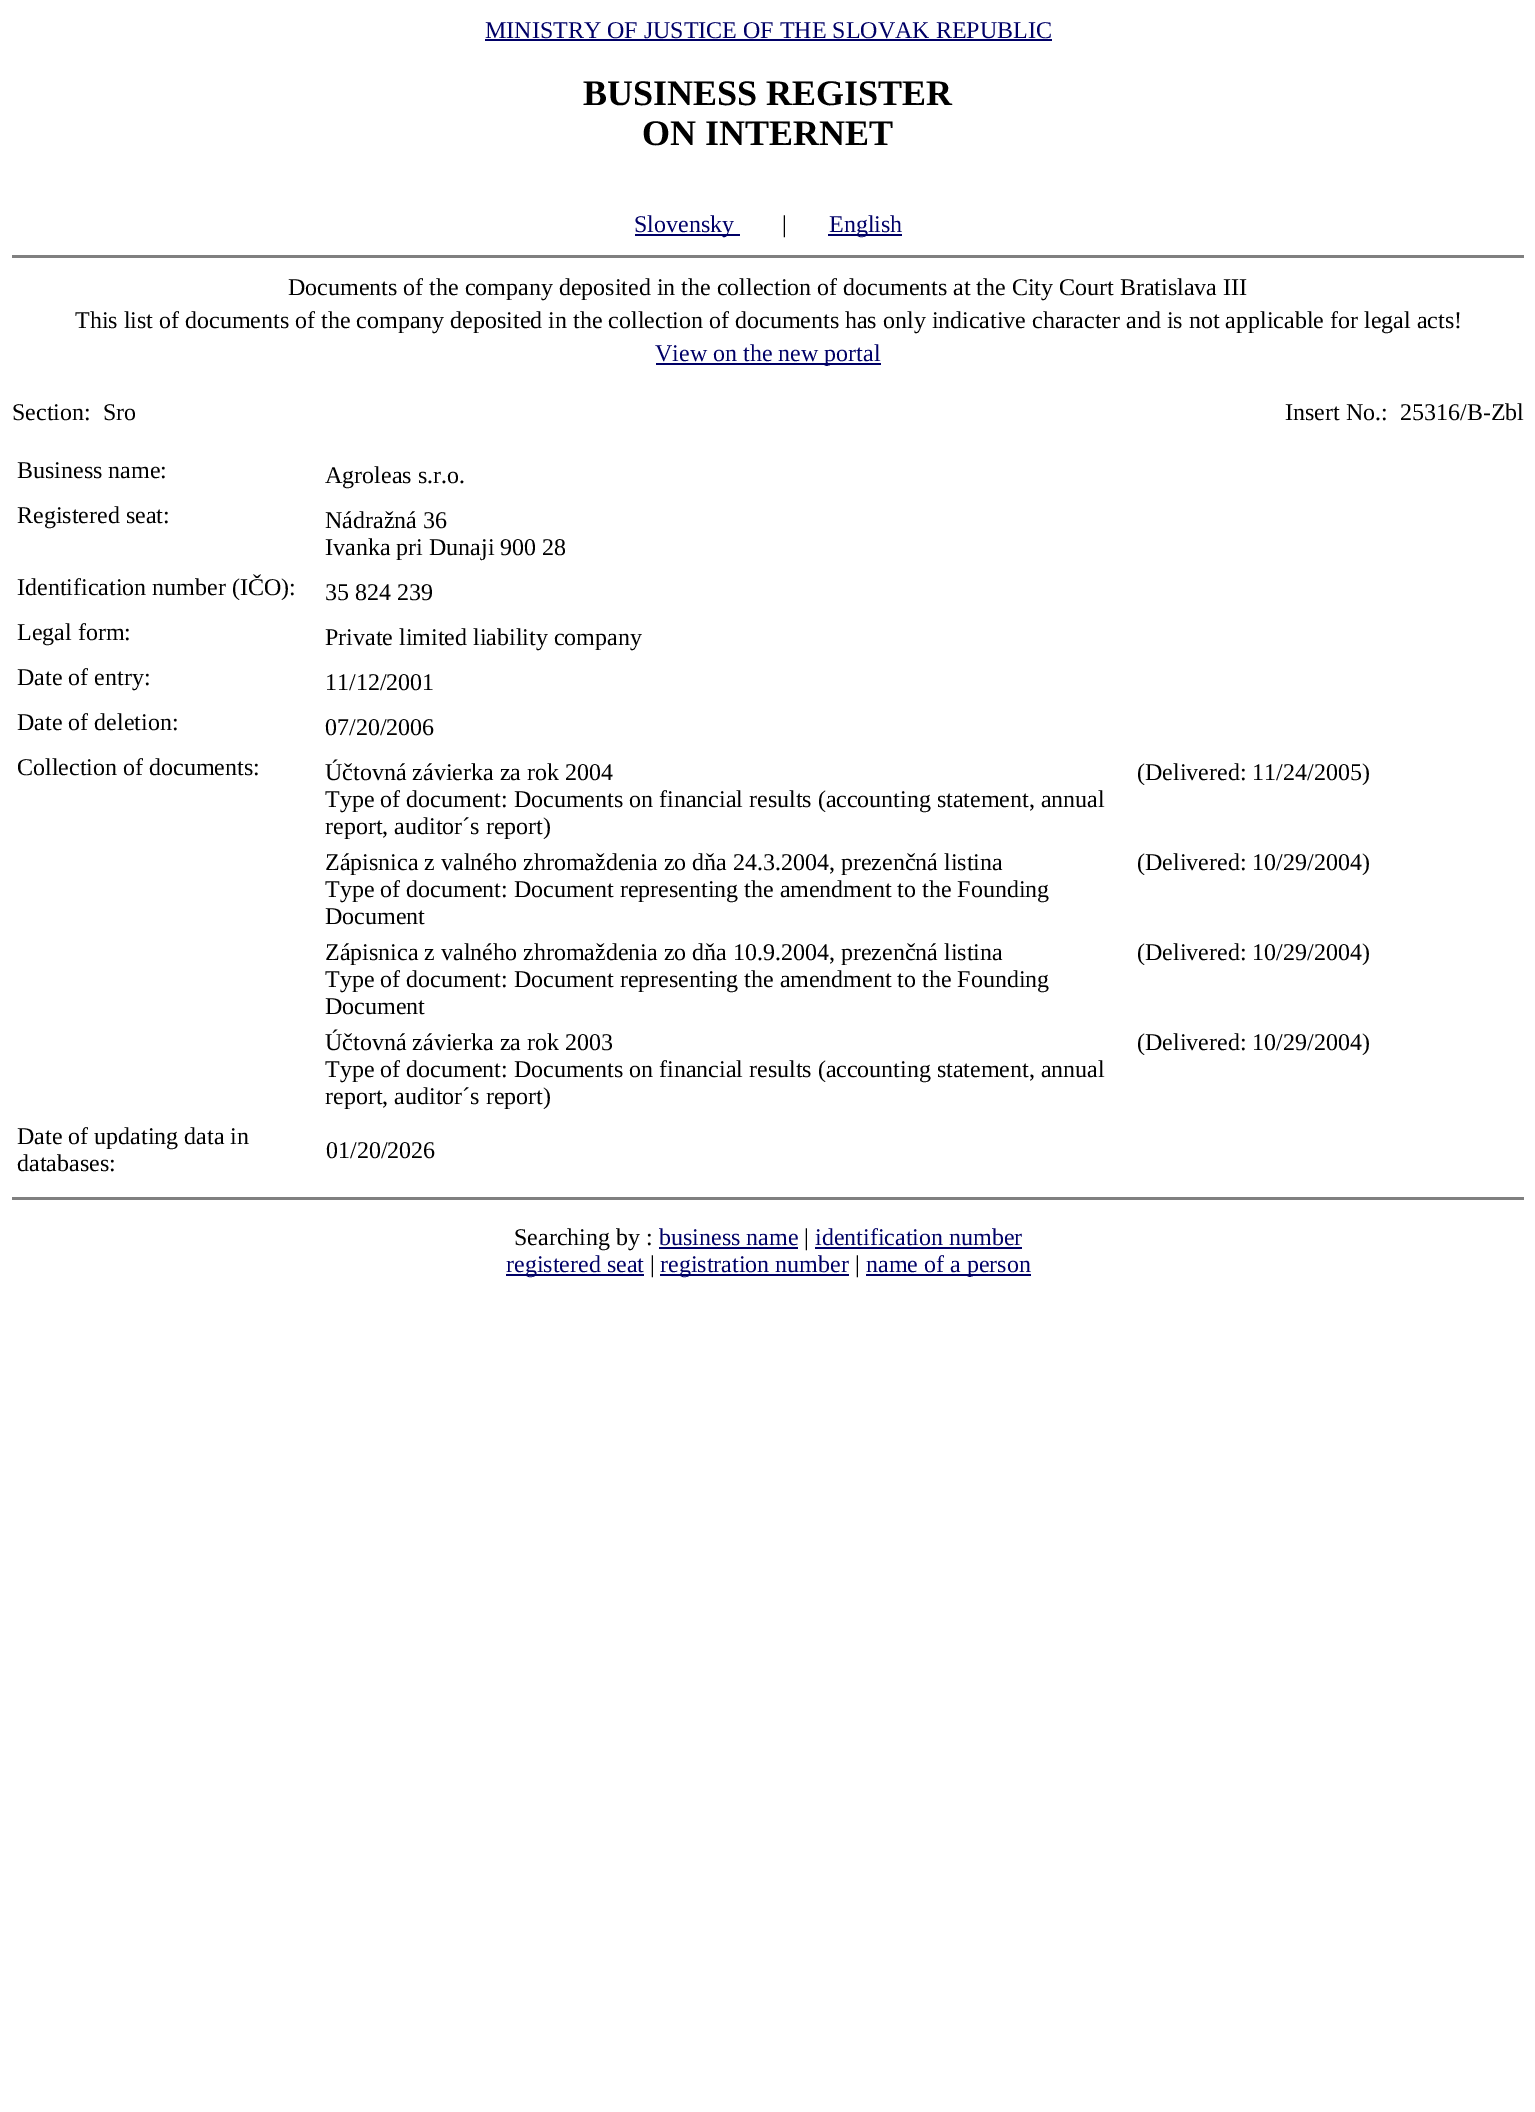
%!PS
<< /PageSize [1535 2112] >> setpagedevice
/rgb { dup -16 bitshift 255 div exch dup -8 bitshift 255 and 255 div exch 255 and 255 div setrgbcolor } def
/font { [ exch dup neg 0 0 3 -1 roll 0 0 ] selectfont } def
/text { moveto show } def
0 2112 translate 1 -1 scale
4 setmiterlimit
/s1 { /LiberationSerif-Regular 24 font 16#000066 rgb } def
/s2 { /LiberationSerif-Bold 36 font 16#000000 rgb } def
/s3 { /LiberationSerif-Regular 24 font 16#000000 rgb } def
16#FFFFFF rgb
0 0 1535 2112 rectfill
s1
(MINISTRY OF JUSTICE OF THE SLOVAK REPUBLIC) 485 38 text
485 39 567 2 rectfill
s2
(BUSINESS REGISTER) 583 105 text
(ON INTERNET) 642 145 text
16#000066 rgb
635 234 105 2 rectfill
s1
(Slovensky) 634 232 text
s3
(|) 782 232 text
16#000066 rgb
828 234 74 2 rectfill
(English) 829 232 text
16#808080 rgb
12 255 1512 3 rectfill
s3
(Documents of the company deposited in the collection of documents at the City Court Bratislava III) 288 295 text
(This list of documents of the company deposited in the collection of documents has only indicative character and is not applicable for legal acts!) 75 328 text
16#000066 rgb
656 363 225 2 rectfill
(View on the new portal) 655 361 text
s3
(Section:) 12 420 text
(Sro) 103 420 text
(Insert No.:) 1285 420 text
(25316/B-Zbl) 1400 420 text
(Business name:) 17 478 text
(Agroleas s.r.o.) 325 483 text
(Registered seat:) 17 523 text
(Nádražná 36) 325 528 text
(Ivanka pri Dunaji 900 28) 325 555 text
(Identification number \(IČO\):) 17 595 text
(35 824 239) 325 600 text
(Legal form:) 17 640 text
(Private limited liability company) 325 645 text
(Date of entry:) 17 685 text
(11/12/2001) 325 690 text
(Date of deletion:) 17 730 text
(07/20/2006) 325 735 text
(Collection of documents:) 17 775 text
(Účtovná závierka za rok 2004) 325 780 text
(Type of document: Documents on financial results \(accounting statement, annual) 325 807 text
(report, auditor´s report\)) 325 834 text
(\(Delivered: 11/24/2005\)) 1137 780 text
(Zápisnica z valného zhromaždenia zo dňa 24.3.2004, prezenčná listina) 325 870 text
(Type of document: Document representing the amendment to the Founding) 325 897 text
(Document) 325 924 text
(\(Delivered: 10/29/2004\)) 1137 870 text
(Zápisnica z valného zhromaždenia zo dňa 10.9.2004, prezenčná listina) 325 960 text
(Type of document: Document representing the amendment to the Founding) 325 987 text
(Document) 325 1014 text
(\(Delivered: 10/29/2004\)) 1137 960 text
(Účtovná závierka za rok 2003) 325 1050 text
(Type of document: Documents on financial results \(accounting statement, annual) 325 1077 text
(report, auditor´s report\)) 325 1104 text
(\(Delivered: 10/29/2004\)) 1137 1050 text
(Date of updating data in) 17 1144 text
(databases:) 17 1171 text
(01/20/2026) 326 1158 text
16#808080 rgb
12 1197 1512 3 rectfill
s3
(Searching by :) 514 1245 text
s1
(business name) 659 1245 text
659 1247 139 2 rectfill
s3
(|) 804 1245 text
s1
(identification number) 815 1245 text
815 1247 207 2 rectfill
506 1274 138 2 rectfill
(registered seat) 506 1272 text
s3
(|) 650 1272 text
16#000066 rgb
660 1274 189 2 rectfill
(registration number) 660 1272 text
s3
(|) 855 1272 text
16#000066 rgb
866 1274 165 2 rectfill
(name of a person) 866 1272 text
showpage
